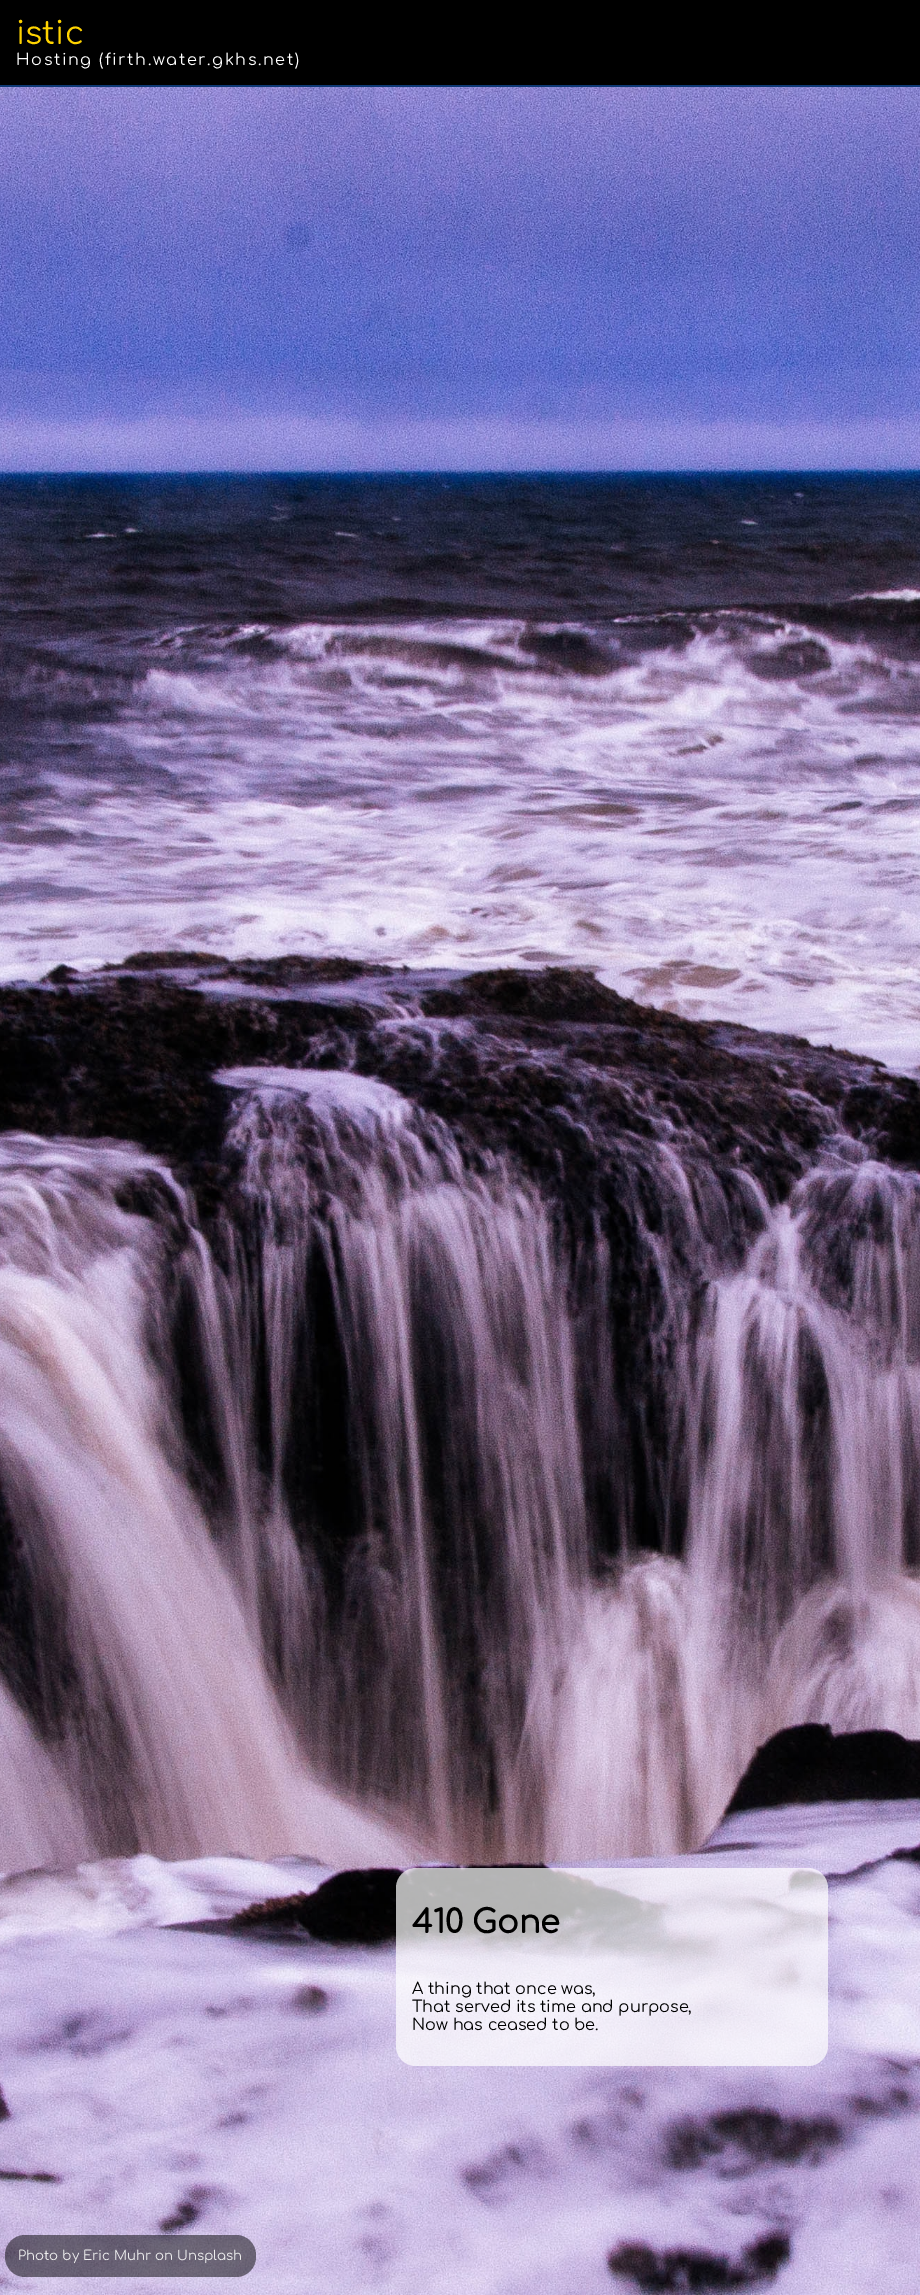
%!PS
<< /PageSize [920 2295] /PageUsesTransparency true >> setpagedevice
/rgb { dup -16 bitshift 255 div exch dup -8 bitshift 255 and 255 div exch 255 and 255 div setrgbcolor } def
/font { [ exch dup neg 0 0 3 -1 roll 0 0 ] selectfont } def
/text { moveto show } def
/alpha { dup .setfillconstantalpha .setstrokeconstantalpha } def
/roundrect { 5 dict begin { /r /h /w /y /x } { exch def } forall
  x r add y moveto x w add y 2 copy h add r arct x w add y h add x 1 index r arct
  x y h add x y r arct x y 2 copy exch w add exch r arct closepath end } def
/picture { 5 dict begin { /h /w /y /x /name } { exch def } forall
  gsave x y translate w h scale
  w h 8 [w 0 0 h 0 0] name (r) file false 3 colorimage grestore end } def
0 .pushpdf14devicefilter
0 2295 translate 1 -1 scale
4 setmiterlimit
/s1 { /Comfortaa-Regular 32 font 16#FFD300 rgb } def
/s2 { /Comfortaa-Bold 32 font 16#000000 rgb } def
/s3 { /Comfortaa-Regular 16 font 16#000000 rgb } def
/s4 { /Comfortaa-Regular 13.3 font 16#EEEEEE rgb } def
16#FFFFFF rgb
0 0 920 2295 rectfill
(pic1.raw) 0 87 920 2208 picture
16#000000 rgb
0 0 920 85 rectfill
16#0E3874 rgb
0 85 920 2 rectfill
s1
(istic) 16 44 text
/Comfortaa-Regular 16 font
16#FFFFFF rgb
16 65 moveto 1.6 0 (Hosting \(firth.water.gkhs.net\)) ashow
0.7 alpha
396 1868 432 198 20 roundrect fill
1 alpha
s2
(410 Gone) 412 1933 text
s3
(A thing that once was,) 412 1994 text
(That served its time and purpose,) 412 2012 text
(Now has ceased to be.) 412 2030 text
0.5 alpha
5 2235 251 42 20 roundrect fill
1 alpha
s4
(Photo by Eric Muhr on Unsplash) 18 2260 text
.poppdf14devicefilter showpage
